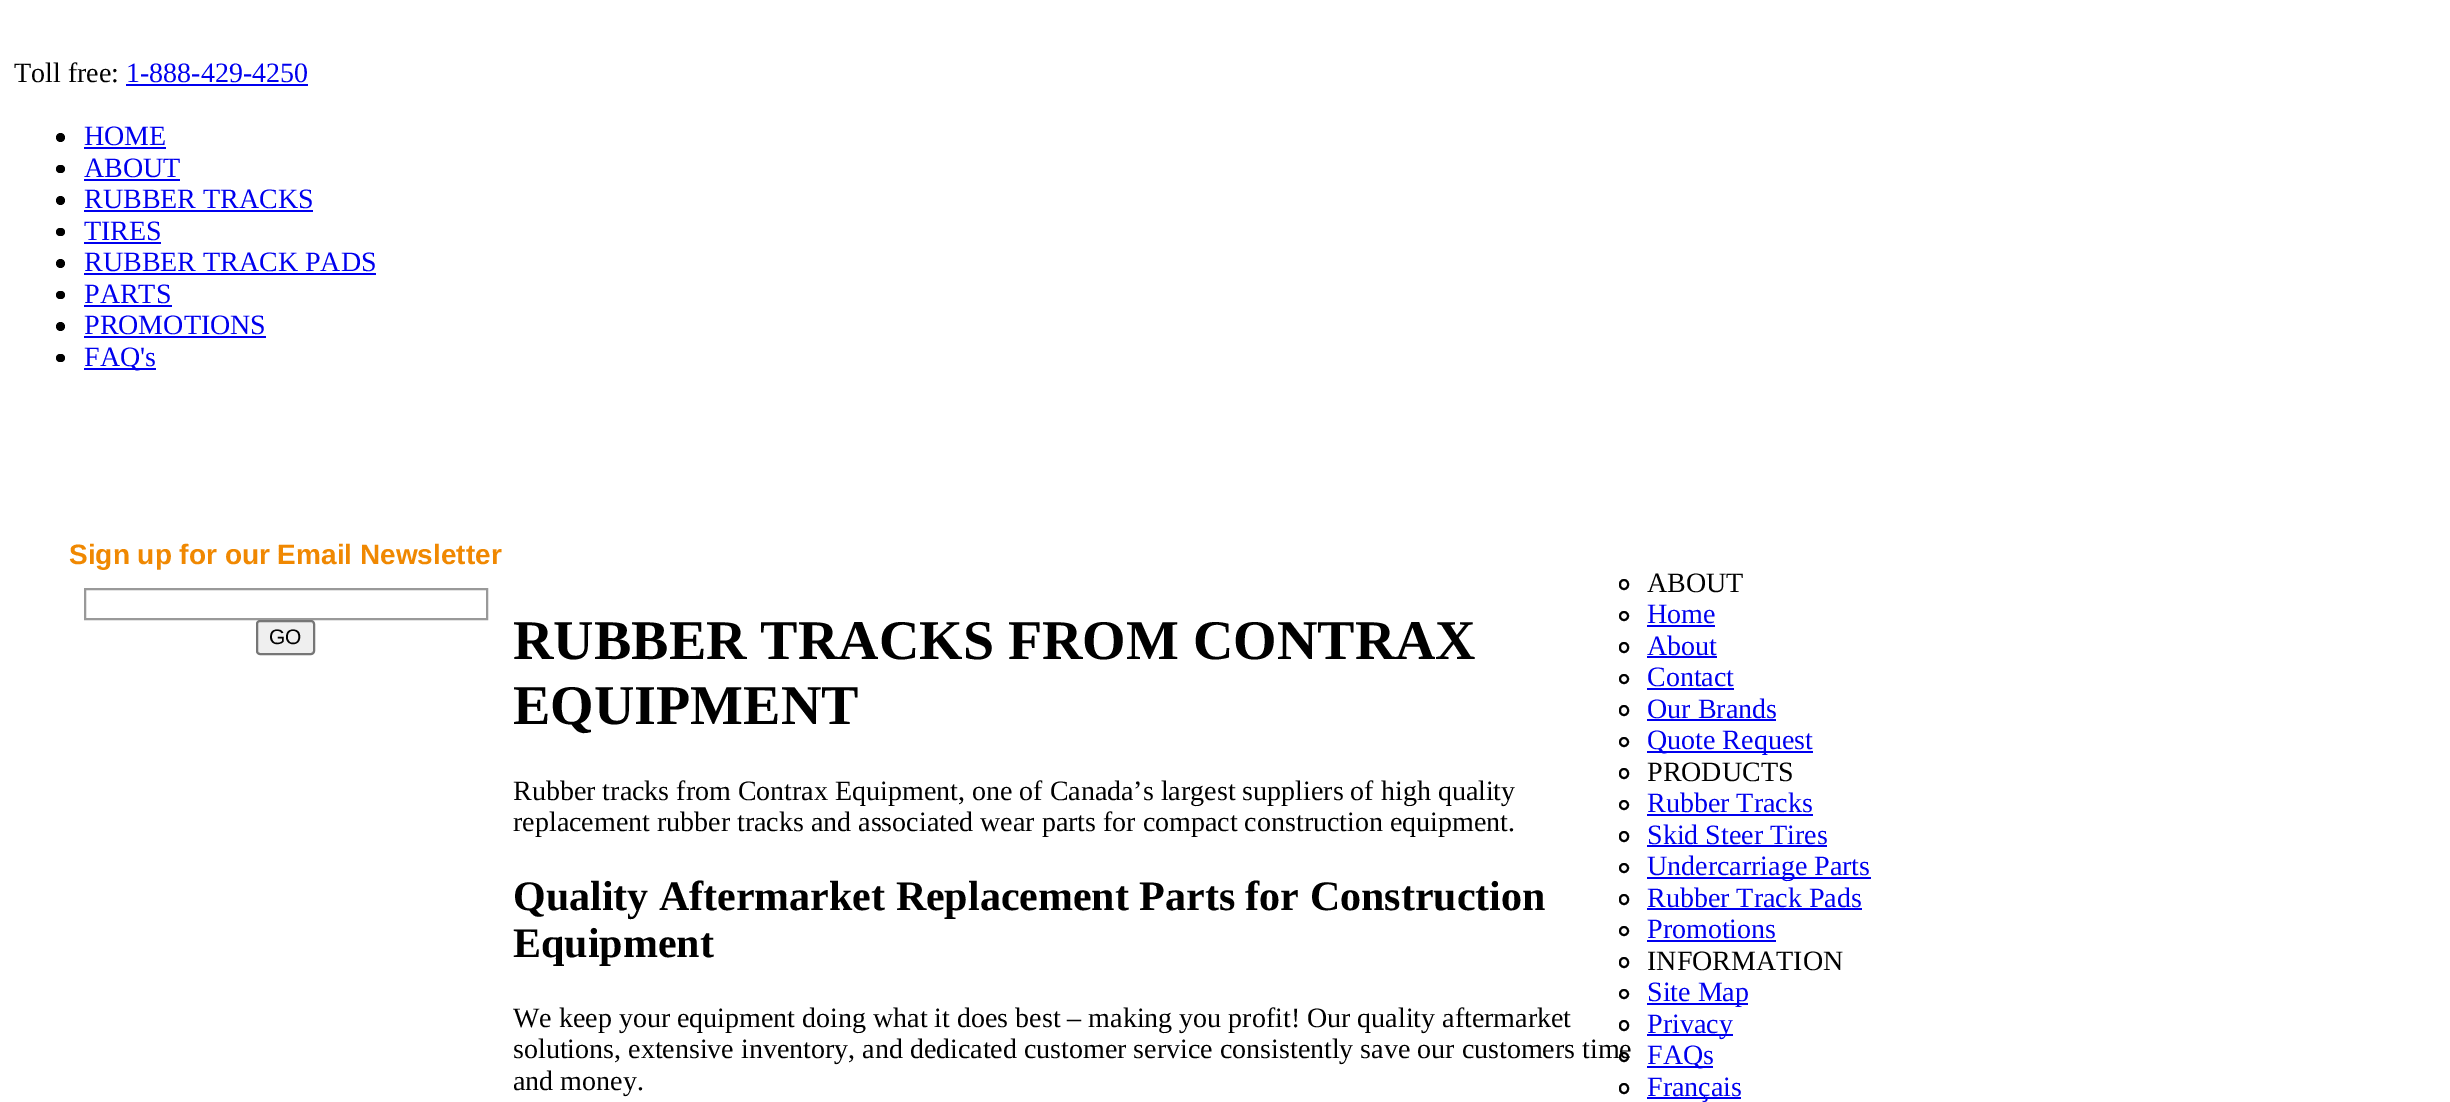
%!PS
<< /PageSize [2450 1102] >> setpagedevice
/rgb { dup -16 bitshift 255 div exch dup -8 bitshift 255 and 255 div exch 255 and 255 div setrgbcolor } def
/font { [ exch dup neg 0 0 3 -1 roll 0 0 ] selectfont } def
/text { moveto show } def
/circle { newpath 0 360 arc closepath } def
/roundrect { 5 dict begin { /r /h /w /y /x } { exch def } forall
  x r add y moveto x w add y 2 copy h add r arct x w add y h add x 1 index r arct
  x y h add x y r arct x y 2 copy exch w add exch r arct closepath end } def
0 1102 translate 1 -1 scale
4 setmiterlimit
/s1 { /LiberationSerif-Regular 28 font 16#000000 rgb } def
/s2 { /LiberationSerif-Regular 28 font 16#0000EE rgb } def
/s3 { /LiberationSans-Bold 28 font 16#F08801 rgb } def
/s4 { /LiberationSans-Regular 21 font 16#000000 rgb } def
/s5 { /LiberationSerif-Bold 56 font 16#000000 rgb } def
/s6 { /LiberationSerif-Bold 42 font 16#000000 rgb } def
16#FFFFFF rgb
0 0 2450 1102 rectfill
s1
(Toll free:) 14 82 text
s2
(1-888-429-4250) 126 82 text
126 84 182 2 rectfill
16#000000 rgb
60.5 137.5 4.5 circle fill
s2
(HOME) 84 145 text
84 147 82 2 rectfill
16#000000 rgb
56 165 9 8 4 roundrect fill
s2
(ABOUT) 84 177 text
84 179 96 2 rectfill
16#000000 rgb
60.5 200.5 4.5 circle fill
s2
(RUBBER TRACKS) 84 208 text
84 210 229 2 rectfill
16#000000 rgb
56 228 9 8 4 roundrect fill
s2
(TIRES) 84 240 text
84 242 77 2 rectfill
16#000000 rgb
60.5 263.5 4.5 circle fill
s2
(RUBBER TRACK PADS) 84 271 text
84 273 292 2 rectfill
16#000000 rgb
56 291 9 8 4 roundrect fill
s2
(PARTS) 84 303 text
84 305 88 2 rectfill
16#000000 rgb
60.5 326.5 4.5 circle fill
s2
(PROMOTIONS) 84 334 text
84 336 182 2 rectfill
16#000000 rgb
56 354 9 8 4 roundrect fill
16#0000EE rgb
84 368 72 2 rectfill
(FAQ's) 84 366 text
s3
(Sign up for our Email Newsletter) 69 564 text
16#999999 rgb
2 setlinewidth
85 589 402 30 rectstroke
16#EFEFEF rgb
257 621 57 33 3 roundrect gsave fill grestore
16#767676 rgb
stroke
s4
(GO) 269 644 text
s5
(RUBBER TRACKS FROM CONTRAX) 513 659 text
(EQUIPMENT) 513 724 text
s1
(Rubber tracks from Contrax Equipment, one of Canada’s largest suppliers of high quality) 513 800 text
(replacement rubber tracks and associated wear parts for compact construction equipment.) 513 831 text
s6
(Quality Aftermarket Replacement Parts for Construction) 513 910 text
(Equipment) 513 957 text
s1
(We keep your equipment doing what it does best – making you profit! Our quality aftermarket) 513 1027 text
1624 1057 4 circle stroke
(solutions, extensive inventory, and dedicated customer service consistently save our customers time) 513 1058 text
(and money.) 513 1090 text
1620 580 8 9 4 roundrect stroke
(ABOUT) 1647 592 text
1624 616 4 circle stroke
s2
(Home) 1647 623 text
1647 625 68 2 rectfill
16#000000 rgb
1620 643 8 9 4 roundrect stroke
s2
(About) 1647 655 text
1647 656 70 2 rectfill
16#000000 rgb
1624 679 4 circle stroke
s2
(Contact) 1647 686 text
1647 688 87 2 rectfill
16#000000 rgb
1620 706 8 9 4 roundrect stroke
s2
(Our Brands) 1647 718 text
1647 719 129 2 rectfill
16#000000 rgb
1624 742 4 circle stroke
16#0000EE rgb
1647 751 166 2 rectfill
(Quote Request) 1647 749 text
16#000000 rgb
1620 769 8 9 4 roundrect stroke
(PRODUCTS) 1647 781 text
1624 805 4 circle stroke
s2
(Rubber Tracks) 1647 812 text
1647 814 166 2 rectfill
16#000000 rgb
1620 832 8 9 4 roundrect stroke
s2
(Skid Steer Tires) 1647 844 text
1647 845 180 2 rectfill
16#000000 rgb
1624 868 4 circle stroke
16#0000EE rgb
1647 877 224 2 rectfill
(Undercarriage Parts) 1647 875 text
16#000000 rgb
1620 895 8 9 4 roundrect stroke
s2
(Rubber Track Pads) 1647 907 text
1647 908 215 2 rectfill
16#000000 rgb
1624 931 4 circle stroke
s2
(Promotions) 1647 938 text
1647 940 129 2 rectfill
16#000000 rgb
1620 958 8 9 4 roundrect stroke
(INFORMATION) 1647 970 text
1624 994 4 circle stroke
16#0000EE rgb
1647 1003 101 2 rectfill
(Site Map) 1647 1001 text
16#000000 rgb
1620 1021 8 9 4 roundrect stroke
16#0000EE rgb
1647 1034 86 2 rectfill
(Privacy) 1647 1033 text
1647 1066 66 2 rectfill
(FAQs) 1647 1064 text
16#000000 rgb
1620 1084 8 9 4 roundrect stroke
16#0000EE rgb
1647 1097 94 2 rectfill
(Français) 1647 1096 text
showpage
